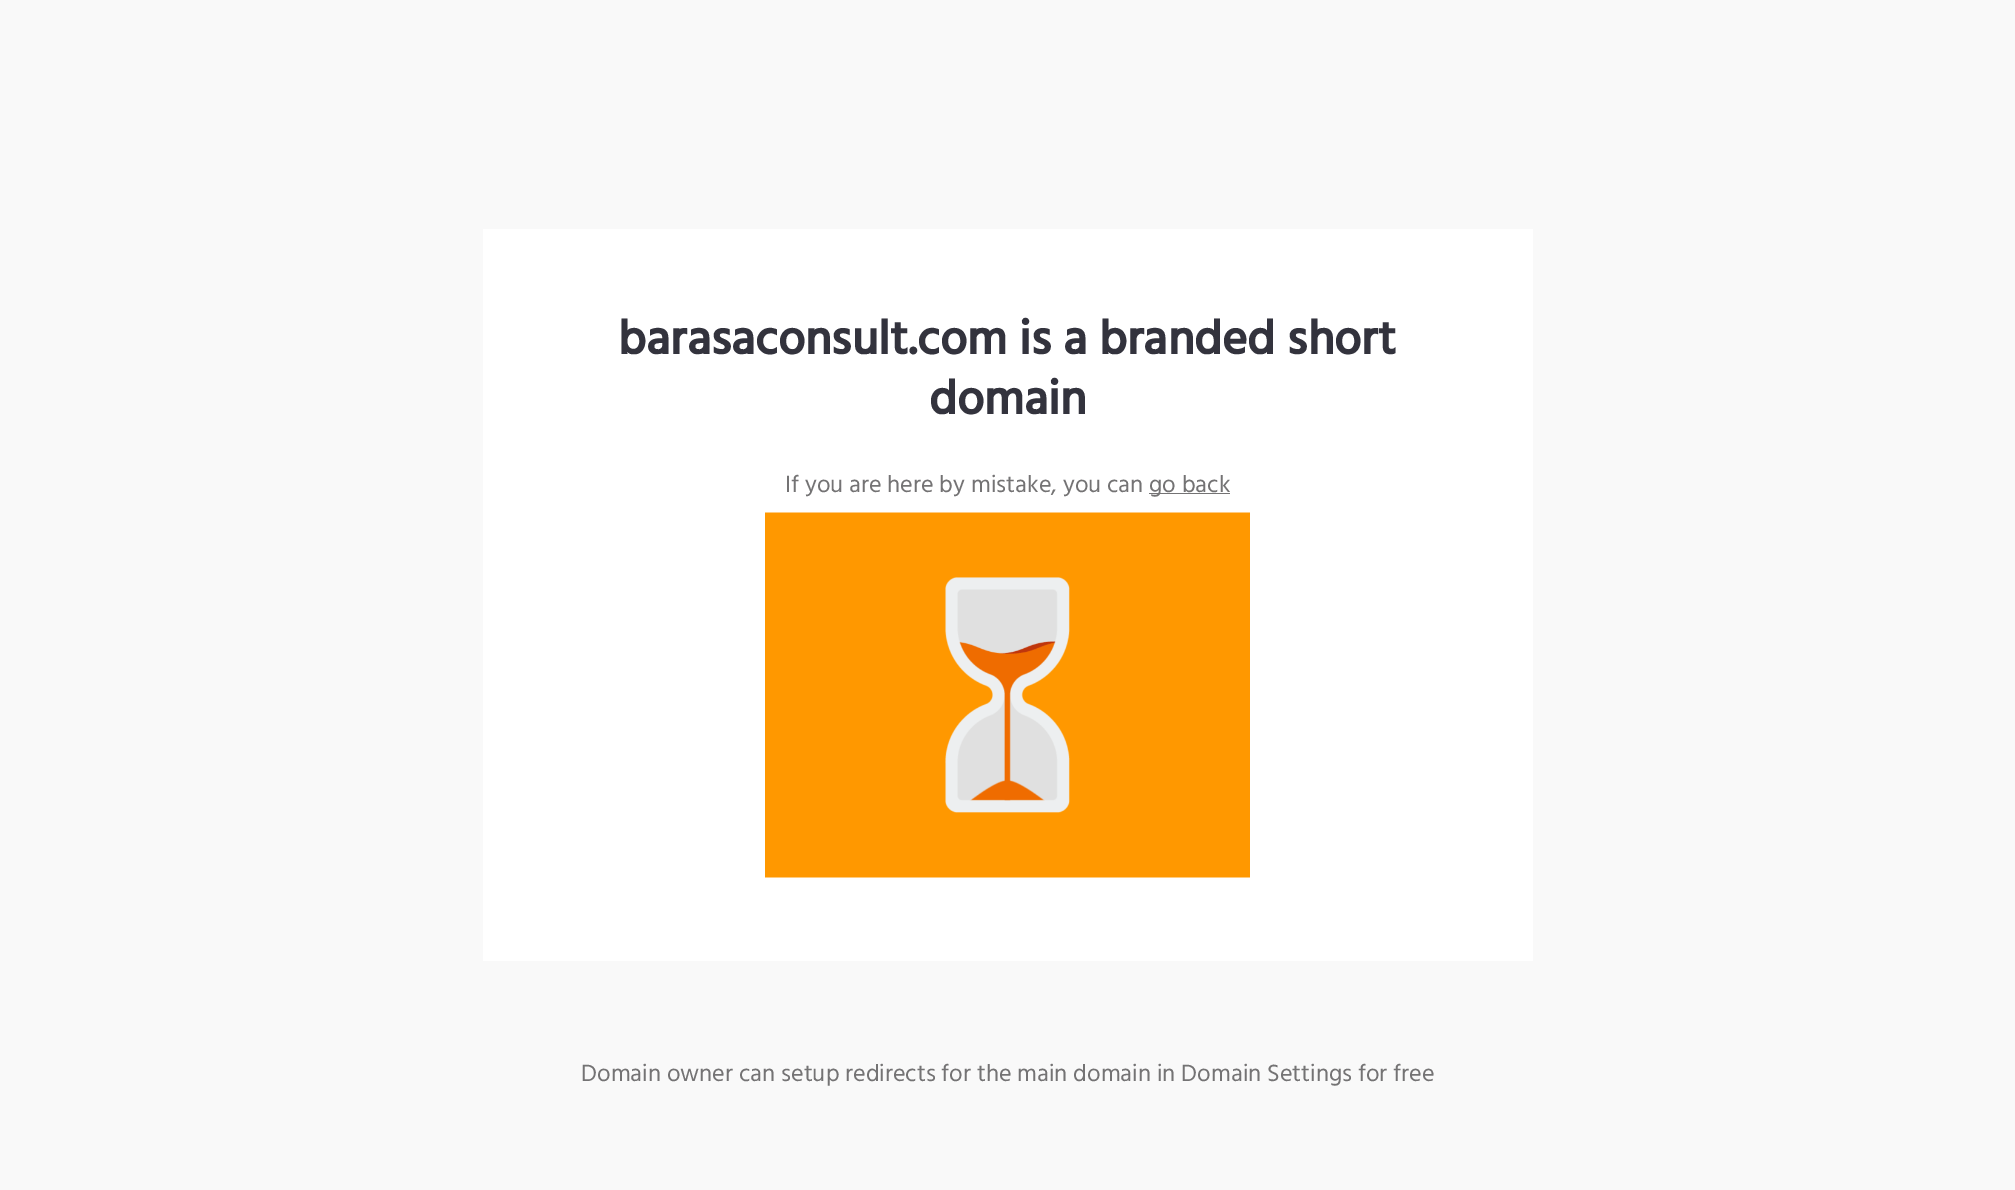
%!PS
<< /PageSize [2015 1190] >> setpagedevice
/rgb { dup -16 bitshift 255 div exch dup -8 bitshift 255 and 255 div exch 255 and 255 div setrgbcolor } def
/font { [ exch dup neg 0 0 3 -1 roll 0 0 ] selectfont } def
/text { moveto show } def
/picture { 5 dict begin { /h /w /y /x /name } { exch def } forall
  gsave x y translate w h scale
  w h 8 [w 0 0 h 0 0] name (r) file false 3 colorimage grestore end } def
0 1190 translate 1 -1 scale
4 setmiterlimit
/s1 { /Hind-Bold 48.25 font 16#33333D rgb } def
/s2 { /Hind-Regular 24.15 font 16#747374 rgb } def
16#F9F9F9 rgb
0 0 2015 1190 rectfill
16#FFFFFF rgb
483 229 1050 732 rectfill
s1
(barasaconsult.com is a branded short) 618 354 text
(domain) 929 414 text
s2
(If you are here by mistake, you can) 785 492 text
1149 493 81 1 rectfill
(go back) 1149 492 text
(pic1.raw) 765 512 485 366 picture
(Domain owner can setup redirects for the main domain in Domain Settings for free) 581 1081 text
showpage
